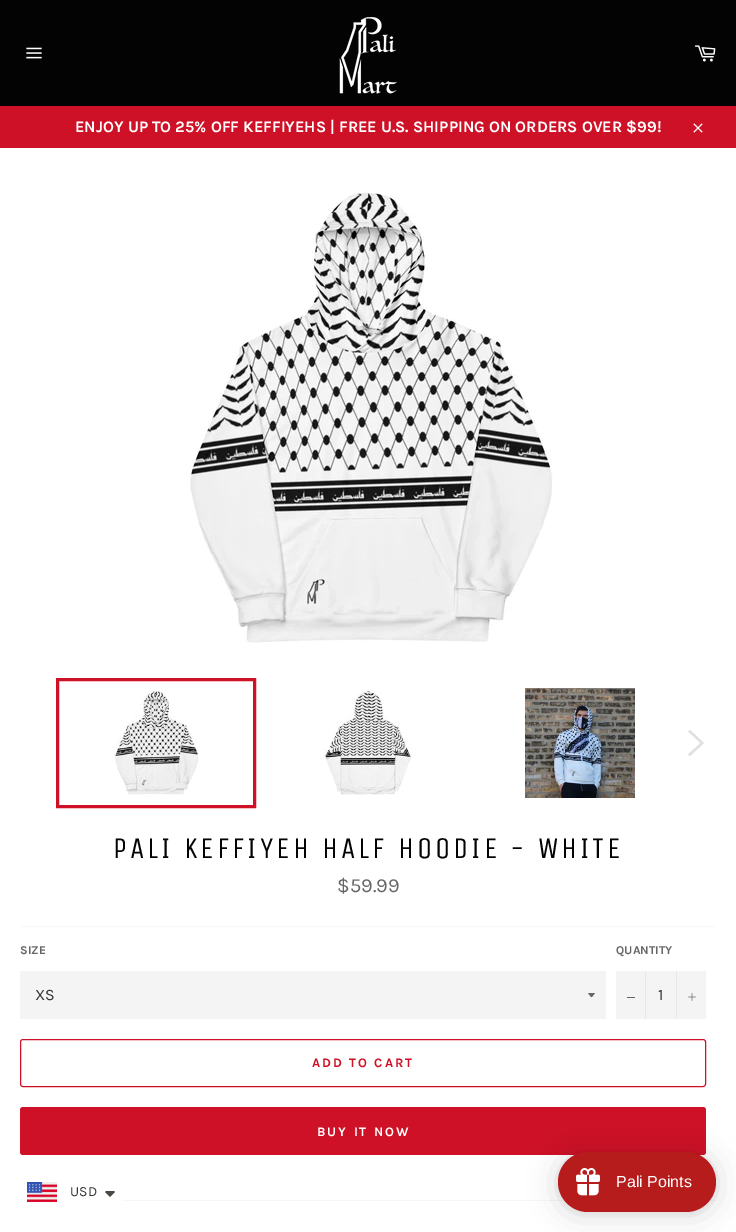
%!PS
<< /PageSize [736 1232] /PageUsesTransparency true >> setpagedevice
/rgb { dup -16 bitshift 255 div exch dup -8 bitshift 255 and 255 div exch 255 and 255 div setrgbcolor } def
/font { [ exch dup neg 0 0 3 -1 roll 0 0 ] selectfont } def
/text { moveto show } def
/alpha { dup .setfillconstantalpha .setstrokeconstantalpha } def
/roundrect { 5 dict begin { /r /h /w /y /x } { exch def } forall
  x r add y moveto x w add y 2 copy h add r arct x w add y h add x 1 index r arct
  x y h add x y r arct x y 2 copy exch w add exch r arct closepath end } def
/shadow { 12 dict begin { /a /b /q /h /w /y /x } { exch def } forall gsave /was 0 def
  9 -2 -9 { dup b mul 4 div /e exch def 1 sub .425 mul 2.718 exch exp 1 add a .99 .min exch div /now exch def
    1 1 now sub 1 was sub div sub alpha /was now def
    w h .min e 2 mul add 0 gt { x e sub y e sub w e 2 mul add h e 2 mul add
      q e add b .6 mul add w h .min 2 div e add .min 0 .max roundrect fill } if } for grestore end } def
/picture { 5 dict begin { /h /w /y /x /name } { exch def } forall
  gsave x y translate w h scale
  w h 8 [w 0 0 h 0 0] name (r) file false 3 colorimage grestore end } def
0 .pushpdf14devicefilter
0 1232 translate 1 -1 scale
4 setmiterlimit
/s1 { /Karla-Bold 16 font 16#FFFFFF rgb } def
/s2 { /Karla-Regular 20 font 16#666666 rgb } def
/s3 { /Karla-Bold 12 font 16#666666 rgb } def
/s4 { /Karla-Regular 16 font 16#333333 rgb } def
/s5 { /LiberationSans-Regular 16 font 16#FFFFFF rgb } def
/s6 { /Karla-Regular 14 font 16#333333 rgb } def
16#030303 rgb
0 0 736 1232 rectfill
(pic1.raw) 26 47 16 12 picture
(pic2.raw) 339 16 58 78 picture
(pic3.raw) 694 45 22 17 picture
16#CE1126 rgb
0 106 736 42 rectfill
s1
(ENJOY UP TO 25% OFF KEFFIYEHS | FREE U.S. SHIPPING ON ORDERS OVER $99!) 75 132 text
(pic4.raw) 693 123 10 10 picture
0 148 736 1084 rectfill
(pic5.raw) 189 191 364 452 picture
(pic6.raw) 114 690 85 105 picture
16#CE1126 rgb
3 setlinewidth
57.5 679.5 197 127 rectstroke
(pic7.raw) 324 690 88 105 picture
(pic8.raw) 525 688 110 110 picture
16#E0E0E0 rgb
688 731.5 moveto 690 730 lineto 704 743 lineto 690 756 lineto 688 754.5 lineto 700.5 743 lineto closepath fill
/UnicaOne-Regular 30 font
16#030303 rgb
113 858 moveto 3 0 (PALI KEFFIYEH HALF HOODIE - WHITE) ashow
s2
($59.99) 337 892 text
16#F7F7F7 rgb
20 926 696 1 rectfill
s3
(SIZE) 20 954 text
16#F4F4F4 rgb
20 971 586 48 rectfill
16#666666 rgb
588 993 moveto 592.5 998.5 590.5 998.5 595 993 curveto closepath fill
s4
(XS) 35 1000 text
s3
(QUANTITY) 616 954 text
16#F4F4F4 rgb
616 971 90 48 rectfill
16#E7E7E7 rgb
645 971 1 48 rectfill
16#666666 rgb
627 997 8 1 rectfill
s4
(1) 658 1000 text
16#E7E7E7 rgb
676 971 1 48 rectfill
(pic9.raw) 688 993 8 8 picture
16#CE1126 rgb
1 setlinewidth
20.5 1039.5 685 47 2.5 roundrect stroke
/Karla-Bold 13 font
312 1067 moveto 2 0 (ADD TO CART) ashow
20 1107 686 48 3 roundrect fill
16#FFFFFF rgb
317 1136 moveto 2 0 (BUY IT NOW) ashow
16#F7F7F7 rgb
123 1200 593 1 rectfill
16#000000 rgb
558 1154 158 60 30 15 0.15 shadow
558 1153 158 60 30 3 0.05 shadow
16#B71C1C rgb
558 1152 158 60 30 roundrect fill
(pic10.raw) 576 1168 24 28 picture
s5
(Pali Points) 616 1187 text
(pic11.raw) 27 1182 30 20 picture
s6
(USD) 70 1196 text
16#474942 rgb
107 1191 moveto 106 1191 105.5 1191.5 105 1192 curveto 110 1197 lineto 115 1192 lineto 114 1191 lineto closepath fill
.poppdf14devicefilter showpage
